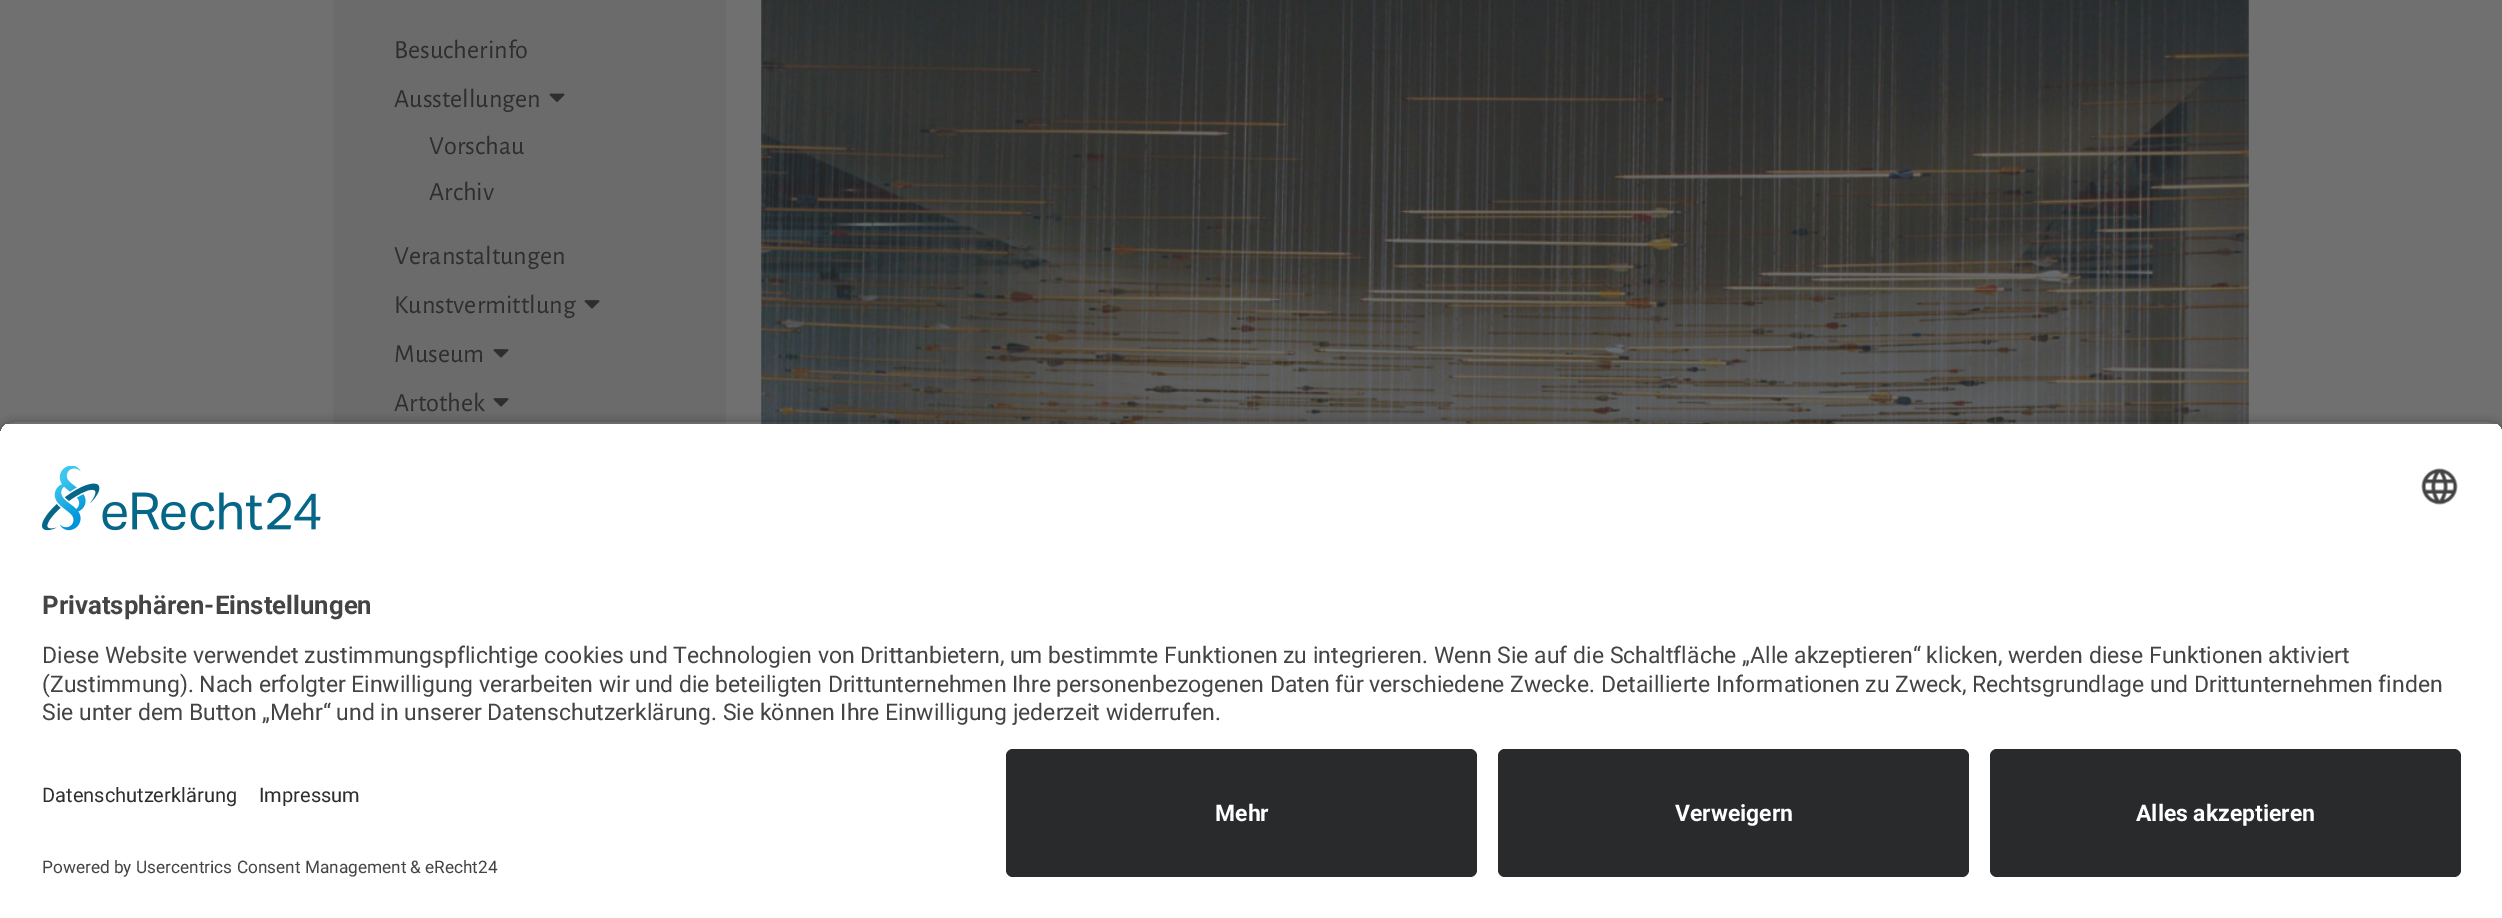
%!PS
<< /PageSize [2502 918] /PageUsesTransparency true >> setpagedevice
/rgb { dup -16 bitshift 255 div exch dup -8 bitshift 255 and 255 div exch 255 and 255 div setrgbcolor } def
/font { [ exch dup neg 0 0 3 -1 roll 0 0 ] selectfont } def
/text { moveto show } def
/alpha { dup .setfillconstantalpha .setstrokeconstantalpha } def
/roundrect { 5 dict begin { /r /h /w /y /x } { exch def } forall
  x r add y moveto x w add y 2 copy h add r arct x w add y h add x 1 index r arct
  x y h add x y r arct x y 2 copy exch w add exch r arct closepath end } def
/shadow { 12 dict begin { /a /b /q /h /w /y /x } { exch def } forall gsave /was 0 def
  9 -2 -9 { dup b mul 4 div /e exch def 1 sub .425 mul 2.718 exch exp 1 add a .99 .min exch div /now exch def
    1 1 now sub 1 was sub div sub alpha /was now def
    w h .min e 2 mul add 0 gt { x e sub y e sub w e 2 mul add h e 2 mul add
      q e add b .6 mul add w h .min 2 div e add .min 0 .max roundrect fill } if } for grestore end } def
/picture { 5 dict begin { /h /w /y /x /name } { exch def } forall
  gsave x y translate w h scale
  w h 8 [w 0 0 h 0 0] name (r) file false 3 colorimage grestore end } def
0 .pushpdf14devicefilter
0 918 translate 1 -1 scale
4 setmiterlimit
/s1 { /AlegreyaSans-Regular 26.25 font 16#2E2E2E rgb } def
/s2 { /Roboto-Bold 25.8 font 16#444444 rgb } def
/s3 { /Roboto-Regular 22.97 font 16#444444 rgb } def
/s4 { /Roboto-Regular 20 font 16#2E2E2E rgb } def
/s5 { /Roboto-Regular 17.25 font 16#444444 rgb } def
/s6 { /Roboto-Bold 22.97 font 16#FFFFFF rgb } def
16#707070 rgb
0 0 2502 918 rectfill
16#6B6B6B rgb
333 0 393 424 rectfill
s1
(Besucherinfo) 394 58 text
(Ausstellungen) 394 107 text
(pic1.raw) 549 93 16 9 picture
(Vorschau) 429 154 text
(Archiv) 429 200 text
(Veranstaltungen) 394 264 text
(Kunstvermittlung) 394 313 text
(pic2.raw) 584 300 16 9 picture
(Museum) 394 362 text
(pic2.raw) 493 349 16 9 picture
(Artothek) 394 411 text
(pic2.raw) 493 398 16 9 picture
(pic3.raw) 761 0 1488 424 picture
gsave
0 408 moveto 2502 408 lineto 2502 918 lineto 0 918 lineto closepath 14 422 moveto 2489 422 lineto 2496.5 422 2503 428.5 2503 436 curveto 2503 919 lineto 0 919 lineto 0 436 lineto 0 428.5 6.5 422 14 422 curveto closepath eoclip newpath
16#000000 rgb
0 427 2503 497 14 6 0.8 shadow
grestore
gsave
14 422 moveto 2489 422 lineto 2496.5 422 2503 428.5 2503 436 curveto 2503 735 lineto 0 735 lineto 0 436 lineto 0 428.5 6.5 422 14 422 curveto closepath clip newpath
16#FFFFFF rgb
0 424 2502 311 rectfill
grestore
(pic4.raw) 42 466 279 65 picture
(pic5.raw) 2421 468 37 37 picture
s2
(Privatsphären-Einstellungen) 42 614 text
s3
(Diese Website verwendet zustimmungspflichtige cookies und Technologien von Drittanbietern, um bestimmte Funktionen zu integrieren. Wenn Sie auf die Schaltfläche „Alle akzeptieren“ klicken, werden diese Funktionen aktiviert) 42 663 text
42 692 moveto -0.1 0 32 (\(Zustimmung\). Nach erfolgter Einwilligung verarbeiten wir und die beteiligten Drittunternehmen Ihre personenbezogenen Daten für verschiedene Zwecke. Detaillierte Informationen zu Zweck, Rechtsgrundlage und Drittunternehmen finden) widthshow
(Sie unter dem Button „Mehr“ und in unserer Datenschutzerklärung. Sie können Ihre Einwilligung jederzeit widerrufen.) 42 720 text
16#FFFFFF rgb
0 735 2502 183 rectfill
s4
(Datenschutzerklärung) 42 802 text
(Impressum) 259 802 text
s5
(Powered by Usercentrics Consent Management) 42 873 text
(& eRecht24) 410 873 text
16#292A2B rgb
1006 749 471 128 7 roundrect fill
s6
(Mehr) 1215 821 text
16#292A2B rgb
1498 749 471 128 7 roundrect fill
s6
(Verweigern) 1675 821 text
16#292A2B rgb
1990 749 471 128 7 roundrect fill
s6
(Alles akzeptieren) 2136 821 text
.poppdf14devicefilter showpage
